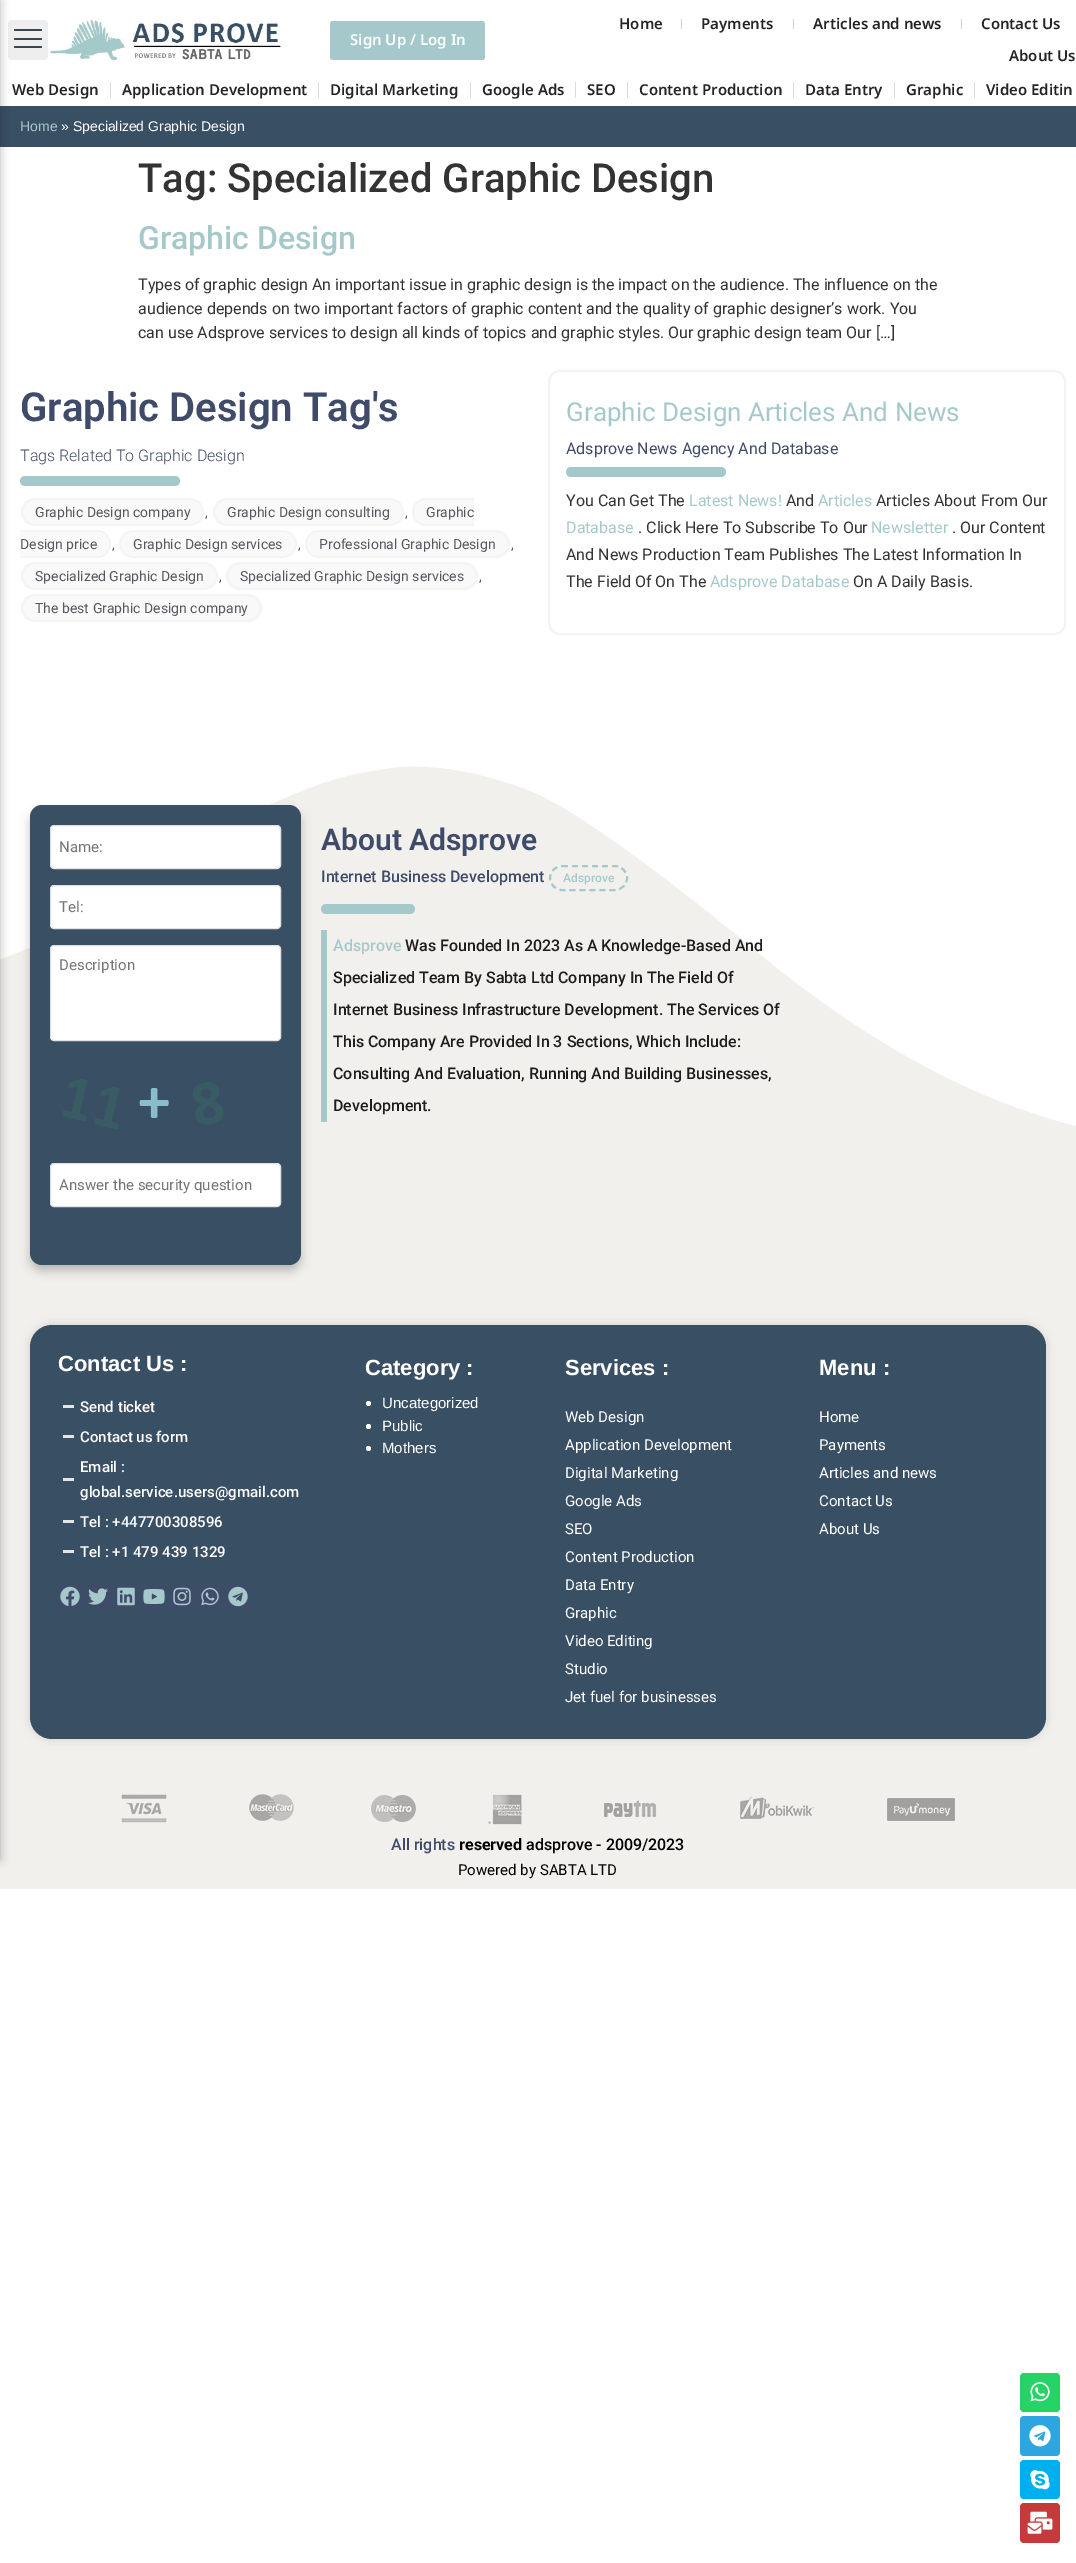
%!PS
<< /PageSize [1076 2563] /PageUsesTransparency true >> setpagedevice
/rgb { dup -16 bitshift 255 div exch dup -8 bitshift 255 and 255 div exch 255 and 255 div setrgbcolor } def
/font { [ exch dup neg 0 0 3 -1 roll 0 0 ] selectfont } def
/text { moveto show } def
/alpha { dup .setfillconstantalpha .setstrokeconstantalpha } def
/circle { newpath 0 360 arc closepath } def
/roundrect { 5 dict begin { /r /h /w /y /x } { exch def } forall
  x r add y moveto x w add y 2 copy h add r arct x w add y h add x 1 index r arct
  x y h add x y r arct x y 2 copy exch w add exch r arct closepath end } def
/shadow { 12 dict begin { /a /b /q /h /w /y /x } { exch def } forall gsave /was 0 def
  9 -2 -9 { dup b mul 4 div /e exch def 1 sub .425 mul 2.718 exch exp 1 add a .99 .min exch div /now exch def
    1 1 now sub 1 was sub div sub alpha /was now def
    w h .min e 2 mul add 0 gt { x e sub y e sub w e 2 mul add h e 2 mul add
      q e add b .6 mul add w h .min 2 div e add .min 0 .max roundrect fill } if } for grestore end } def
/picture { 5 dict begin { /h /w /y /x /name } { exch def } forall
  gsave x y translate w h scale
  w h 8 [w 0 0 h 0 0] name (r) file false 3 colorimage grestore end } def
0 .pushpdf14devicefilter
0 2563 translate 1 -1 scale
4 setmiterlimit
/s1 { /NotoSansArabic-SemiBold 15 font 16#FFFFFF rgb } def
/s2 { /NotoSansArabic-SemiBold 15 font 16#242424 rgb } def
/s3 { /LiberationSans-Regular 14 font 16#A5C9CA rgb } def
/s4 { /LiberationSans-Regular 14 font 16#FFFFFF rgb } def
/s5 { /Roboto-Medium 40 font 16#333333 rgb } def
/s6 { /Roboto-Medium 32 font 16#A5C9CA rgb } def
/s7 { /Roboto-Regular 16 font 16#333333 rgb } def
/s8 { /Roboto-SemiBold 40 font 16#404B69 rgb } def
/s9 { /Roboto-Light 16 font 16#404B69 rgb } def
/s10 { /Roboto-Regular 14 font 16#54595F rgb } def
/s11 { /Roboto-Regular 26 font 16#A5C9CA rgb } def
/s12 { /Roboto-Regular 16 font 16#404B69 rgb } def
/s13 { /Roboto-Regular 16 font 16#A5C9CA rgb } def
/s14 { /Roboto-Regular 15 font 16#757575 rgb } def
/s15 { /Roboto-SemiBold 30 font 16#404B69 rgb } def
/s16 { /Roboto-Medium 16 font 16#404B69 rgb } def
/s17 { /Roboto-Medium 12 font 16#A5C9CA rgb } def
/s18 { /Roboto-Medium 16 font 16#A5C9CA rgb } def
/s19 { /Roboto-Medium 16 font 16#1E1E1E rgb } def
/s20 { /LiberationSans-Bold 22 font 16#FFFFFF rgb } def
/s21 { /Roboto-Medium 15 font 16#FFFFFF rgb } def
/s22 { /LiberationSans-Regular 15 font 16#FFFFFF rgb } def
/s23 { /Roboto-Regular 15 font 16#FFFFFF rgb } def
/s24 { /Roboto-Bold 16 font 16#000000 rgb } def
/s25 { /Roboto-Medium 16 font 16#000000 rgb } def
/s26 { /Roboto-Regular 15 font 16#000000 rgb } def
16#FFFFFF rgb
0 0 1076 2563 rectfill
16#EEEEEE rgb
8 20 40 40 4 roundrect fill
16#3A4750 rgb
14 38 28 2 1 roundrect fill
14 29 28 2 1 roundrect fill
14 46 28 2 1 roundrect fill
16#394F64 rgb
0 106 1076 41 rectfill
16#F2F0ED rgb
0 766 1076 1123 rectfill
16#FFFFFF rgb
378 770 moveto 424 760 484 772 533 792 curveto 581 812 678 887 738 936 curveto 893 1067 1012 1117 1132 1138 curveto 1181 1146 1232 1152 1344 1128 curveto 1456 1103 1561 1024 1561 1024 curveto 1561 744 lineto -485 744 lineto -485 867 lineto -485 867 -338 999 -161 990 curveto -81 987 29 963 113 900 curveto 157 867 220 826 276 802 curveto 332 776 357 774 378 770 curveto closepath fill
16#020101 rgb
-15 0 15 1859 0 5 0.28 shadow
(pic1.raw) 48 19 233 42 picture
16#A5C9CA rgb
330 21 155 39 3 roundrect fill
s1
(Sign Up / Log In) 350 45 text
s2
(Home) 619 29 text
16#CED1D3 rgb
681 19 1 10 rectfill
s2
(Payments) 701 29 text
16#CED1D3 rgb
793 19 1 10 rectfill
s2
(Articles and news) 813 29 text
16#CED1D3 rgb
961 19 1 10 rectfill
s2
(Contact Us) 981 29 text
(About Us) 1009 61 text
(Web Design) 12 95 text
16#D9D9D9 rgb
110 82 1 16 rectfill
s2
(Application Development) 122 95 text
16#D9D9D9 rgb
318 82 1 16 rectfill
s2
(Digital Marketing) 330 95 text
16#D9D9D9 rgb
470 82 1 16 rectfill
s2
(Google Ads) 482 95 text
16#D9D9D9 rgb
575 82 1 16 rectfill
s2
(SEO) 587 95 text
16#D9D9D9 rgb
627 82 1 16 rectfill
s2
(Content Production) 639 95 text
16#D9D9D9 rgb
793 82 1 16 rectfill
s2
(Data Entry) 805 95 text
16#D9D9D9 rgb
894 82 1 16 rectfill
s2
(Graphic) 906 95 text
16#D9D9D9 rgb
974 82 1 16 rectfill
s2
(Video Editin) 986 95 text
s3
(Home) 20 131 text
s4
(» Specialized Graphic Design) 61 131 text
s5
(Tag: Specialized Graphic Design) 138 192 text
s6
(Graphic Design) 138 249 text
s7
(Types of graphic design An important issue in graphic design is the impact on the audience. The influence on the) 138 290 text
(audience depends on two important factors of graphic content and the quality of graphic designer’s work. You) 138 314 text
(can use Adsprove services to design all kinds of topics and graphic styles. Our graphic design team Our […]) 138 338 text
s8
(Graphic Design Tag's) 20 421 text
s9
(Tags Related To Graphic Design) 20 461 text
16#A5C9CA rgb
20 476 160 10 5 roundrect fill
16#F9F9F9 rgb
22 499 181 26 13 roundrect gsave fill grestore
16#F4F4F4 rgb
2 setlinewidth
stroke
s10
(Graphic Design company) 35 517 text
(,) 205 517 text
16#F9F9F9 rgb
214 499 189 26 13 roundrect gsave fill grestore
16#F4F4F4 rgb
stroke
s10
(Graphic Design consulting) 227 517 text
(,) 405 517 text
16#F9F9F9 rgb
426 498 moveto 474 498 lineto 474 526 lineto 426 526 lineto 418.5 526 412 519.5 412 512 curveto 412 504.5 418.5 498 426 498 curveto closepath fill
16#F4F4F4 rgb
426 498 moveto 474 498 lineto 474 526 lineto 426 526 lineto 418 526 412 520 412 512 curveto 412 504 418 498 426 498 curveto closepath 426 500 moveto 474 500 lineto 474 524 lineto 426 524 lineto 419 524 414 519 414 512 curveto 414 505 419 500 426 500 curveto closepath eofill
s10
(Graphic) 426 517 text
16#F9F9F9 rgb
20 530 moveto 97 530 lineto 104.5 530 111 536.5 111 544 curveto 111 551.5 104.5 558 97 558 curveto 20 558 lineto closepath fill
16#F4F4F4 rgb
20 530 moveto 97 530 lineto 105 530 111 536 111 544 curveto 111 552 105 558 97 558 curveto 20 558 lineto closepath 20 532 moveto 97 532 lineto 104 532 109 537 109 544 curveto 109 551 104 556 97 556 curveto 20 556 lineto closepath eofill
s10
(Design price) 20 549 text
(,) 112 549 text
16#F9F9F9 rgb
120 531 176 26 13 roundrect gsave fill grestore
16#F4F4F4 rgb
stroke
s10
(Graphic Design services) 133 549 text
(,) 298 549 text
16#F9F9F9 rgb
306 531 203 26 13 roundrect gsave fill grestore
16#F4F4F4 rgb
stroke
s10
(Professional Graphic Design) 319 549 text
(,) 511 549 text
16#F9F9F9 rgb
22 563 195 26 13 roundrect gsave fill grestore
16#F4F4F4 rgb
stroke
s10
(Specialized Graphic Design) 35 581 text
(,) 219 581 text
16#F9F9F9 rgb
227 563 250 26 13 roundrect gsave fill grestore
16#F4F4F4 rgb
stroke
s10
(Specialized Graphic Design services) 240 581 text
(,) 479 581 text
16#F9F9F9 rgb
22 595 239 26 13 roundrect gsave fill grestore
16#F4F4F4 rgb
stroke
s10
(The best Graphic Design company) 35 613 text
16#F3F3F3 rgb
549 371 516 263 11 roundrect stroke
s11
(Graphic Design Articles And News) 566 421 text
s12
(Adsprove News Agency And Database) 566 454 text
16#A5C9CA rgb
566 467 160 10 5 roundrect fill
s7
(You Can Get The) 566 506 text
s13
(Latest News!) 689 506 text
s7
(And) 786 506 text
s13
(Articles) 818 506 text
s7
(Articles About From Our) 876 506 text
s13
(Database) 566 533 text
s7
(. Click Here To Subscribe To Our) 638 533 text
s13
(Newsletter) 871 533 text
s7
(. Our Content) 952 533 text
(And News Production Team Publishes The Latest Information In) 566 560 text
(The Field Of On The) 566 587 text
s13
(Adsprove Database) 710 587 text
s7
(On A Daily Basis.) 853 587 text
16#000000 rgb
30 811 271 460 12 5 0.24 shadow
16#394F64 rgb
30 805 271 460 12 roundrect fill
16#FFFFFF rgb
50.5 825.5 230 43 3.5 roundrect gsave fill grestore
16#E0E0E0 rgb
1 setlinewidth
stroke
s14
(Name:) 59 852 text
16#FFFFFF rgb
50.5 885.5 230 43 3.5 roundrect gsave fill grestore
16#E0E0E0 rgb
stroke
s14
(Tel:) 59 912 text
16#FFFFFF rgb
50.5 945.5 230 95 3.5 roundrect gsave fill grestore
16#E0E0E0 rgb
stroke
s14
(Description) 59 970 text
(pic2.raw) 62 1079 162 51 picture
16#FFFFFF rgb
50.5 1163.5 230 43 3.5 roundrect gsave fill grestore
16#E0E0E0 rgb
stroke
s14
(Answer the security question) 59 1190 text
s15
(About Adsprove) 321 850 text
s16
(Internet Business Development) 321 882 text
16#A5C9CA rgb
2 setlinewidth
[6 4] 0 setdash
562 866 moveto 615 866 lineto 621.5 866 627 871.5 627 878 curveto 627 884.5 621.5 890 615 890 curveto 562 890 lineto 555.5 890 550 884.5 550 878 curveto 550 871.5 555.5 866 562 866 curveto closepath stroke
s17
(Adsprove) 563 882 text
321 904 94 10 5 roundrect fill
321 930 6 192 rectfill
s18
(Adsprove) 333 951 text
s19
(Was Founded In 2023 As A Knowledge-Based And) 405 951 text
(Specialized Team By Sabta Ltd Company In The Field Of) 333 983 text
(Internet Business Infrastructure Development. The Services Of) 333 1015 text
(This Company Are Provided In 3 Sections, Which Include:) 333 1047 text
(Consulting And Evaluation, Running And Building Businesses,) 333 1079 text
(Development.) 333 1111 text
16#000000 rgb
30 1325 1016 414 22 5 0.14 shadow
16#394F64 rgb
30 1325 1016 414 22 roundrect fill
s20
(Contact Us :) 58 1371 text
16#E4E4E4 rgb
63 1405 11 3 rectfill
s21
(Send ticket) 80 1412 text
16#E4E4E4 rgb
63 1435 11 3 rectfill
s21
(Contact us form) 80 1442 text
16#E4E4E4 rgb
63 1478 11 3 rectfill
s21
(Email :) 80 1472 text
(global.service.users@gmail.com) 80 1497 text
16#E4E4E4 rgb
63 1520 11 3 rectfill
s21
(Tel : +447700308596) 80 1527 text
16#E4E4E4 rgb
63 1550 11 3 rectfill
s21
(Tel : +1 479 439 1329) 80 1557 text
16#404B69 rgb
58 1585 24 24 2.5 roundrect fill
(pic3.raw) 60 1586 20 20 picture
86 1585 24 24 2.5 roundrect fill
(pic4.raw) 88 1588 20 17 picture
114 1585 24 24 2.5 roundrect fill
(pic5.raw) 117 1587 18 19 picture
142 1585 24 24 2.5 roundrect fill
(pic6.raw) 143 1589 22 15 picture
170 1585 24 24 2.5 roundrect fill
(pic7.raw) 173 1587 18 19 picture
198 1585 24 24 2.5 roundrect fill
(pic8.raw) 201 1587 18 19 picture
226 1585 24 24 2.5 roundrect fill
(pic9.raw) 228 1586 20 21 picture
s20
(Category :) 365 1375 text
368.5 1403.5 2.5 circle fill
s22
(Uncategorized) 382 1408 text
368.5 1426.5 2.5 circle fill
(Public) 382 1431 text
368.5 1448.5 2.5 circle fill
(Mothers) 382 1453 text
s20
(Services :) 565 1375 text
s23
(Web Design) 565 1422 text
(Application Development) 565 1450 text
(Digital Marketing) 565 1478 text
(Google Ads) 565 1506 text
(SEO) 565 1534 text
(Content Production) 565 1562 text
(Data Entry) 565 1590 text
(Graphic) 565 1618 text
(Video Editing) 565 1646 text
(Studio) 565 1674 text
(Jet fuel for businesses) 565 1702 text
s20
(Menu :) 819 1375 text
s23
(Home) 819 1422 text
(Payments) 819 1450 text
(Articles and news) 819 1478 text
(Contact Us) 819 1506 text
(About Us) 819 1534 text
(pic10.raw) 121 1794 834 31 picture
s16
(All rights) 391 1850 text
s24
(reserved) 459 1850 text
s25
(adsprove - 2009/2023) 526 1850 text
s26
(Powered by SABTA LTD) 458 1875 text
16#25D366 rgb
1020 2373 40 39 4 roundrect fill
(pic11.raw) 1030 2382 20 20 picture
16#2CA5E0 rgb
1020 2416 40 40 4 roundrect fill
(pic12.raw) 1029 2425 22 22 picture
16#00AFF0 rgb
1020 2460 40 39 4 roundrect fill
(pic13.raw) 1030 2470 20 20 picture
16#C53B3B rgb
1020 2503 40 40 4 roundrect fill
(pic14.raw) 1027 2511 26 23 picture
.poppdf14devicefilter showpage
